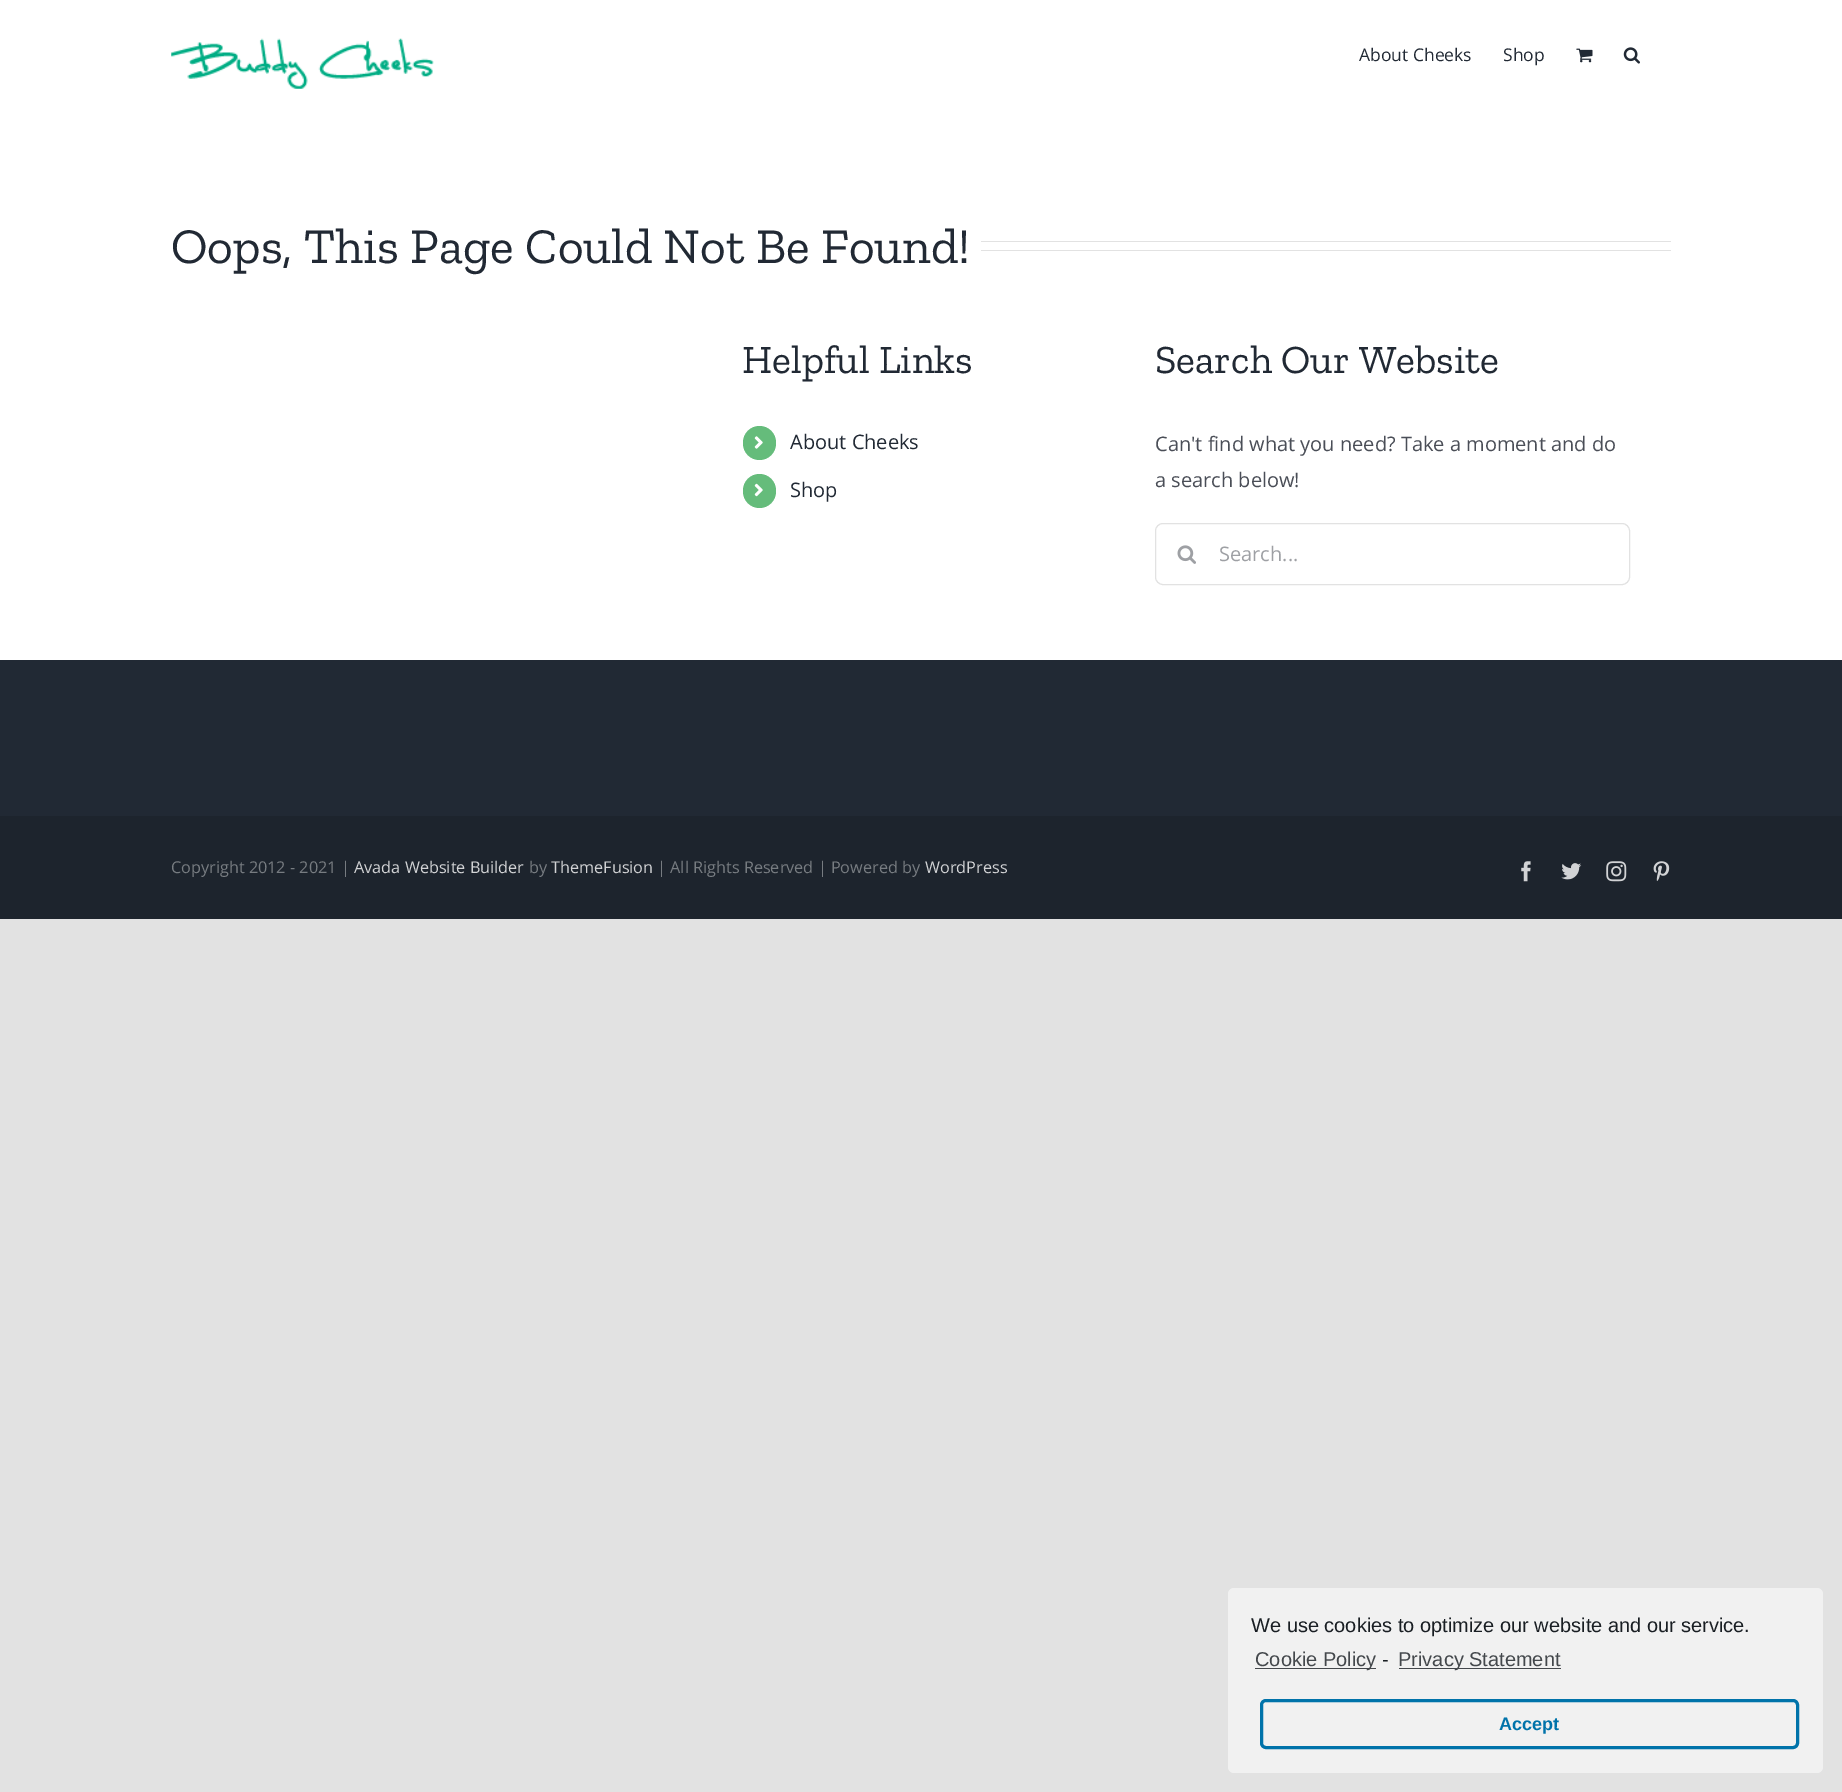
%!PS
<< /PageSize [1842 1792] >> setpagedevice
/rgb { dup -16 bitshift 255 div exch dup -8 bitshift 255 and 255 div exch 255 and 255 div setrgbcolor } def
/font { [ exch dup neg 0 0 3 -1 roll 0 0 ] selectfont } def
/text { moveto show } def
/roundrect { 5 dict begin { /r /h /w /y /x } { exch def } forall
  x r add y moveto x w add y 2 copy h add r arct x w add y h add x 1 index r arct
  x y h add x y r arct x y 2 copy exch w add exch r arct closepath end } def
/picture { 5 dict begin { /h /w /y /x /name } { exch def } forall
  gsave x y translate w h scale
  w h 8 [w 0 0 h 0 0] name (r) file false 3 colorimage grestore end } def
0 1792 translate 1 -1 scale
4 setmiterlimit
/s1 { /OpenSans-Regular 17.5 font 16#212934 rgb } def
/s2 { /ZillaSlab-Regular 50 font 16#212934 rgb } def
/s3 { /ZillaSlab-Regular 40 font 16#212934 rgb } def
/s4 { /OpenSans-Regular 20 font 16#212934 rgb } def
/s5 { /OpenSans-Regular 20 font 16#4A4E57 rgb } def
/s6 { /OpenSans-Regular 20 font 16#9EA0A4 rgb } def
/s7 { /OpenSans-Regular 16.25 font 16#777C81 rgb } def
/s8 { /OpenSans-Regular 16.25 font 16#D2D3D5 rgb } def
/s9 { /LiberationSans-Regular 20 font 16#191E23 rgb } def
/s10 { /LiberationSans-Regular 20 font 16#44484C rgb } def
/s11 { /LiberationSans-Bold 18 font 16#0073AA rgb } def
16#E2E2E2 rgb
0 0 1842 1792 rectfill
16#FFFFFF rgb
0 0 1842 660 rectfill
(pic1.raw) 171 38 263 51 picture
s1
(About Cheeks) 1359 61 text
(Shop) 1503 61 text
(pic2.raw) 1576 48 17 15 picture
(pic3.raw) 1623 47 17 17 picture
s2
(Oops, This Page Could Not Be Found!) 171 263 text
16#E2E2E2 rgb
981 241 690 1 rectfill
981 250 690 1 rectfill
s3
(Helpful Links) 742 373 text
16#65BC7B rgb
743 426 33 34 16.5 roundrect fill
(pic4.raw) 754 436 9 13 picture
s4
(About Cheeks) 790 449 text
16#65BC7B rgb
743 474 33 34 16.5 roundrect fill
(pic5.raw) 754 483 9 14 picture
s4
(Shop) 790 497 text
s3
(Search Our Website) 1155 373 text
s5
(Can't find what you need? Take a moment and do) 1155 451 text
(a search below!) 1155 487 text
16#E2E2E2 rgb
1155.5 523.5 474 61 7.5 roundrect stroke
(pic6.raw) 1177 545 19 19 picture
s6
(Search...) 1219 561 text
16#212934 rgb
0 660 1842 156 rectfill
16#1D242D rgb
0 816 1842 103 rectfill
s7
(Copyright 2012 - 2021 |) 171 873 text
s8
(Avada Website Builder) 354 873 text
s7
(by) 529 873 text
s8
(ThemeFusion) 551 873 text
s7
(| All Rights Reserved | Powered by) 657 873 text
s8
(WordPress) 925 873 text
(pic7.raw) 1521 861 10 21 picture
(pic8.raw) 1561 863 21 17 picture
(pic9.raw) 1606 861 21 21 picture
(pic10.raw) 1653 861 17 20 picture
16#F1F1F1 rgb
1228 1588 595 185 6 roundrect fill
s9
(We use cookies to optimize our website and our service.) 1251 1632 text
16#44484C rgb
1255 1668 121 1 rectfill
(Cookie Policy) 1255 1666 text
s9
(-) 1382 1666 text
16#44484C rgb
1399 1668 162 1 rectfill
(Privacy Statement) 1398 1666 text
16#0073AA rgb
3 setlinewidth
1261.5 1700.5 536 47 4.5 roundrect stroke
s11
(Accept) 1499 1730 text
showpage
